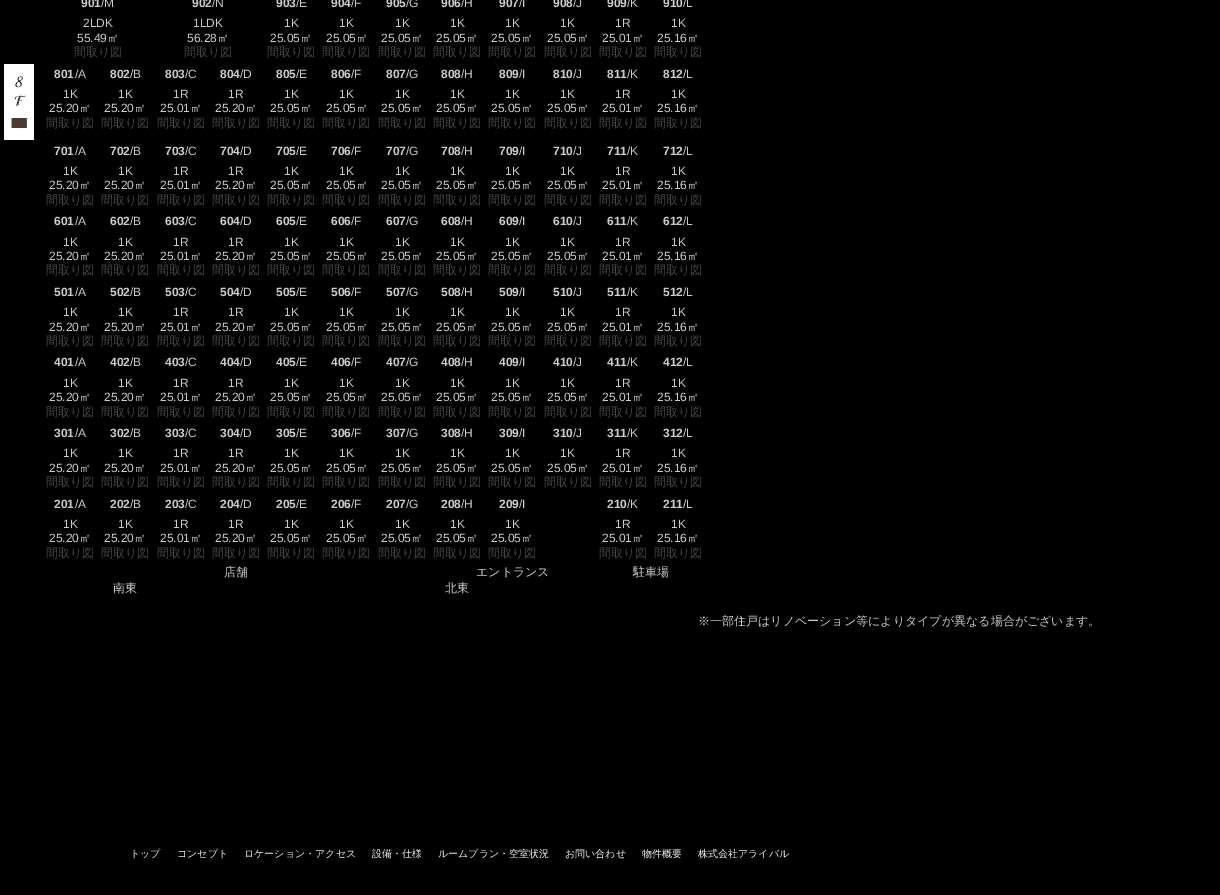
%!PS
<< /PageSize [1220 895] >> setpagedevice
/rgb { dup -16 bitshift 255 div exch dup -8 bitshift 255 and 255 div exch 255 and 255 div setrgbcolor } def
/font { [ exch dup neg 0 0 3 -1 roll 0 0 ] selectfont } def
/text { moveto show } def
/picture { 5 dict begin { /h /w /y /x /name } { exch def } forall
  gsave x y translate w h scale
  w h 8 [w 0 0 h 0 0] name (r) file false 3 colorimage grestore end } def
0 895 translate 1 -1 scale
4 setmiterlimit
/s1 { /LiberationSans-Bold 12 font 16#CCCCCC rgb } def
/s2 { /LiberationSans-Regular 12 font 16#CCCCCC rgb } def
/s3 { /WenQuanYiZenHei-Medium 12 font 16#CCCCCC rgb } def
/s4 { /WenQuanYiZenHei-Medium 12 font 16#454545 rgb } def
/s5 { /WenQuanYiZenHei-Medium 10 font 16#F1F1F1 rgb } def
16#000000 rgb
0 0 1220 895 rectfill
s1
(901) 81 7 text
s2
(/M) 101 7 text
(2LDK) 83 27 text
(55.49) 77 42 text
s3
(㎡) 107 42 text
s4
(間取り図) 74 56 text
s1
(902) 192 7 text
s2
(/N) 212 7 text
(1LDK) 193 27 text
(56.28) 187 42 text
s3
(㎡) 217 42 text
s4
(間取り図) 184 56 text
s1
(903) 276 7 text
s2
(/E) 296 7 text
(1K) 284 27 text
(25.05) 270 42 text
s3
(㎡) 300 42 text
s4
(間取り図) 267 56 text
s1
(904) 331 7 text
s2
(/F) 351 7 text
(1K) 339 27 text
(25.05) 326 42 text
s3
(㎡) 356 42 text
s4
(間取り図) 322 56 text
s1
(905) 386 7 text
s2
(/G) 406 7 text
(1K) 395 27 text
(25.05) 381 42 text
s3
(㎡) 411 42 text
s4
(間取り図) 378 56 text
s1
(906) 441 7 text
s2
(/H) 461 7 text
(1K) 450 27 text
(25.05) 436 42 text
s3
(㎡) 466 42 text
s4
(間取り図) 433 56 text
s1
(907) 499 7 text
s2
(/I) 519 7 text
(1K) 505 27 text
(25.05) 491 42 text
s3
(㎡) 521 42 text
s4
(間取り図) 488 56 text
s1
(908) 553 7 text
s2
(/J) 573 7 text
(1K) 560 27 text
(25.05) 547 42 text
s3
(㎡) 577 42 text
s4
(間取り図) 544 56 text
s1
(909) 607 7 text
s2
(/K) 627 7 text
(1R) 615 27 text
(25.01) 602 42 text
s3
(㎡) 632 42 text
s4
(間取り図) 599 56 text
s1
(910) 663 7 text
s2
(/L) 683 7 text
(1K) 671 27 text
(25.16) 657 42 text
s3
(㎡) 687 42 text
s4
(間取り図) 654 56 text
(pic1.raw) 4 64 30 76 picture
s1
(801) 54 78 text
s2
(/A) 75 78 text
(1K) 63 98 text
(25.20) 49 112 text
s3
(㎡) 79 112 text
s4
(間取り図) 46 127 text
s1
(802) 110 78 text
s2
(/B) 130 78 text
(1K) 118 98 text
(25.20) 104 112 text
s3
(㎡) 134 112 text
s4
(間取り図) 101 127 text
s1
(803) 165 78 text
s2
(/C) 185 78 text
(1R) 173 98 text
(25.01) 160 112 text
s3
(㎡) 190 112 text
s4
(間取り図) 157 127 text
s1
(804) 220 78 text
s2
(/D) 240 78 text
(1R) 228 98 text
(25.20) 215 112 text
s3
(㎡) 245 112 text
s4
(間取り図) 212 127 text
s1
(805) 276 78 text
s2
(/E) 296 78 text
(1K) 284 98 text
(25.05) 270 112 text
s3
(㎡) 300 112 text
s4
(間取り図) 267 127 text
s1
(806) 331 78 text
s2
(/F) 351 78 text
(1K) 339 98 text
(25.05) 326 112 text
s3
(㎡) 356 112 text
s4
(間取り図) 322 127 text
s1
(807) 386 78 text
s2
(/G) 406 78 text
(1K) 395 98 text
(25.05) 381 112 text
s3
(㎡) 411 112 text
s4
(間取り図) 378 127 text
s1
(808) 441 78 text
s2
(/H) 461 78 text
(1K) 450 98 text
(25.05) 436 112 text
s3
(㎡) 466 112 text
s4
(間取り図) 433 127 text
s1
(809) 499 78 text
s2
(/I) 519 78 text
(1K) 505 98 text
(25.05) 491 112 text
s3
(㎡) 521 112 text
s4
(間取り図) 488 127 text
s1
(810) 553 78 text
s2
(/J) 573 78 text
(1K) 560 98 text
(25.05) 547 112 text
s3
(㎡) 577 112 text
s4
(間取り図) 544 127 text
s1
(811) 607 78 text
s2
(/K) 627 78 text
(1R) 615 98 text
(25.01) 602 112 text
s3
(㎡) 632 112 text
s4
(間取り図) 599 127 text
s1
(812) 663 78 text
s2
(/L) 683 78 text
(1K) 671 98 text
(25.16) 657 112 text
s3
(㎡) 687 112 text
s4
(間取り図) 654 127 text
s1
(701) 54 155 text
s2
(/A) 75 155 text
(1K) 63 175 text
(25.20) 49 189 text
s3
(㎡) 79 189 text
s4
(間取り図) 46 204 text
s1
(702) 110 155 text
s2
(/B) 130 155 text
(1K) 118 175 text
(25.20) 104 189 text
s3
(㎡) 134 189 text
s4
(間取り図) 101 204 text
s1
(703) 165 155 text
s2
(/C) 185 155 text
(1R) 173 175 text
(25.01) 160 189 text
s3
(㎡) 190 189 text
s4
(間取り図) 157 204 text
s1
(704) 220 155 text
s2
(/D) 240 155 text
(1R) 228 175 text
(25.20) 215 189 text
s3
(㎡) 245 189 text
s4
(間取り図) 212 204 text
s1
(705) 276 155 text
s2
(/E) 296 155 text
(1K) 284 175 text
(25.05) 270 189 text
s3
(㎡) 300 189 text
s4
(間取り図) 267 204 text
s1
(706) 331 155 text
s2
(/F) 351 155 text
(1K) 339 175 text
(25.05) 326 189 text
s3
(㎡) 356 189 text
s4
(間取り図) 322 204 text
s1
(707) 386 155 text
s2
(/G) 406 155 text
(1K) 395 175 text
(25.05) 381 189 text
s3
(㎡) 411 189 text
s4
(間取り図) 378 204 text
s1
(708) 441 155 text
s2
(/H) 461 155 text
(1K) 450 175 text
(25.05) 436 189 text
s3
(㎡) 466 189 text
s4
(間取り図) 433 204 text
s1
(709) 499 155 text
s2
(/I) 519 155 text
(1K) 505 175 text
(25.05) 491 189 text
s3
(㎡) 521 189 text
s4
(間取り図) 488 204 text
s1
(710) 553 155 text
s2
(/J) 573 155 text
(1K) 560 175 text
(25.05) 547 189 text
s3
(㎡) 577 189 text
s4
(間取り図) 544 204 text
s1
(711) 607 155 text
s2
(/K) 627 155 text
(1R) 615 175 text
(25.01) 602 189 text
s3
(㎡) 632 189 text
s4
(間取り図) 599 204 text
s1
(712) 663 155 text
s2
(/L) 683 155 text
(1K) 671 175 text
(25.16) 657 189 text
s3
(㎡) 687 189 text
s4
(間取り図) 654 204 text
s1
(601) 54 225 text
s2
(/A) 75 225 text
(1K) 63 246 text
(25.20) 49 260 text
s3
(㎡) 79 260 text
s4
(間取り図) 46 274 text
s1
(602) 110 225 text
s2
(/B) 130 225 text
(1K) 118 246 text
(25.20) 104 260 text
s3
(㎡) 134 260 text
s4
(間取り図) 101 274 text
s1
(603) 165 225 text
s2
(/C) 185 225 text
(1R) 173 246 text
(25.01) 160 260 text
s3
(㎡) 190 260 text
s4
(間取り図) 157 274 text
s1
(604) 220 225 text
s2
(/D) 240 225 text
(1R) 228 246 text
(25.20) 215 260 text
s3
(㎡) 245 260 text
s4
(間取り図) 212 274 text
s1
(605) 276 225 text
s2
(/E) 296 225 text
(1K) 284 246 text
(25.05) 270 260 text
s3
(㎡) 300 260 text
s4
(間取り図) 267 274 text
s1
(606) 331 225 text
s2
(/F) 351 225 text
(1K) 339 246 text
(25.05) 326 260 text
s3
(㎡) 356 260 text
s4
(間取り図) 322 274 text
s1
(607) 386 225 text
s2
(/G) 406 225 text
(1K) 395 246 text
(25.05) 381 260 text
s3
(㎡) 411 260 text
s4
(間取り図) 378 274 text
s1
(608) 441 225 text
s2
(/H) 461 225 text
(1K) 450 246 text
(25.05) 436 260 text
s3
(㎡) 466 260 text
s4
(間取り図) 433 274 text
s1
(609) 499 225 text
s2
(/I) 519 225 text
(1K) 505 246 text
(25.05) 491 260 text
s3
(㎡) 521 260 text
s4
(間取り図) 488 274 text
s1
(610) 553 225 text
s2
(/J) 573 225 text
(1K) 560 246 text
(25.05) 547 260 text
s3
(㎡) 577 260 text
s4
(間取り図) 544 274 text
s1
(611) 607 225 text
s2
(/K) 627 225 text
(1R) 615 246 text
(25.01) 602 260 text
s3
(㎡) 632 260 text
s4
(間取り図) 599 274 text
s1
(612) 663 225 text
s2
(/L) 683 225 text
(1K) 671 246 text
(25.16) 657 260 text
s3
(㎡) 687 260 text
s4
(間取り図) 654 274 text
s1
(501) 54 296 text
s2
(/A) 75 296 text
(1K) 63 316 text
(25.20) 49 331 text
s3
(㎡) 79 331 text
s4
(間取り図) 46 345 text
s1
(502) 110 296 text
s2
(/B) 130 296 text
(1K) 118 316 text
(25.20) 104 331 text
s3
(㎡) 134 331 text
s4
(間取り図) 101 345 text
s1
(503) 165 296 text
s2
(/C) 185 296 text
(1R) 173 316 text
(25.01) 160 331 text
s3
(㎡) 190 331 text
s4
(間取り図) 157 345 text
s1
(504) 220 296 text
s2
(/D) 240 296 text
(1R) 228 316 text
(25.20) 215 331 text
s3
(㎡) 245 331 text
s4
(間取り図) 212 345 text
s1
(505) 276 296 text
s2
(/E) 296 296 text
(1K) 284 316 text
(25.05) 270 331 text
s3
(㎡) 300 331 text
s4
(間取り図) 267 345 text
s1
(506) 331 296 text
s2
(/F) 351 296 text
(1K) 339 316 text
(25.05) 326 331 text
s3
(㎡) 356 331 text
s4
(間取り図) 322 345 text
s1
(507) 386 296 text
s2
(/G) 406 296 text
(1K) 395 316 text
(25.05) 381 331 text
s3
(㎡) 411 331 text
s4
(間取り図) 378 345 text
s1
(508) 441 296 text
s2
(/H) 461 296 text
(1K) 450 316 text
(25.05) 436 331 text
s3
(㎡) 466 331 text
s4
(間取り図) 433 345 text
s1
(509) 499 296 text
s2
(/I) 519 296 text
(1K) 505 316 text
(25.05) 491 331 text
s3
(㎡) 521 331 text
s4
(間取り図) 488 345 text
s1
(510) 553 296 text
s2
(/J) 573 296 text
(1K) 560 316 text
(25.05) 547 331 text
s3
(㎡) 577 331 text
s4
(間取り図) 544 345 text
s1
(511) 607 296 text
s2
(/K) 627 296 text
(1R) 615 316 text
(25.01) 602 331 text
s3
(㎡) 632 331 text
s4
(間取り図) 599 345 text
s1
(512) 663 296 text
s2
(/L) 683 296 text
(1K) 671 316 text
(25.16) 657 331 text
s3
(㎡) 687 331 text
s4
(間取り図) 654 345 text
s1
(401) 54 366 text
s2
(/A) 75 366 text
(1K) 63 387 text
(25.20) 49 401 text
s3
(㎡) 79 401 text
s4
(間取り図) 46 416 text
s1
(402) 110 366 text
s2
(/B) 130 366 text
(1K) 118 387 text
(25.20) 104 401 text
s3
(㎡) 134 401 text
s4
(間取り図) 101 416 text
s1
(403) 165 366 text
s2
(/C) 185 366 text
(1R) 173 387 text
(25.01) 160 401 text
s3
(㎡) 190 401 text
s4
(間取り図) 157 416 text
s1
(404) 220 366 text
s2
(/D) 240 366 text
(1R) 228 387 text
(25.20) 215 401 text
s3
(㎡) 245 401 text
s4
(間取り図) 212 416 text
s1
(405) 276 366 text
s2
(/E) 296 366 text
(1K) 284 387 text
(25.05) 270 401 text
s3
(㎡) 300 401 text
s4
(間取り図) 267 416 text
s1
(406) 331 366 text
s2
(/F) 351 366 text
(1K) 339 387 text
(25.05) 326 401 text
s3
(㎡) 356 401 text
s4
(間取り図) 322 416 text
s1
(407) 386 366 text
s2
(/G) 406 366 text
(1K) 395 387 text
(25.05) 381 401 text
s3
(㎡) 411 401 text
s4
(間取り図) 378 416 text
s1
(408) 441 366 text
s2
(/H) 461 366 text
(1K) 450 387 text
(25.05) 436 401 text
s3
(㎡) 466 401 text
s4
(間取り図) 433 416 text
s1
(409) 499 366 text
s2
(/I) 519 366 text
(1K) 505 387 text
(25.05) 491 401 text
s3
(㎡) 521 401 text
s4
(間取り図) 488 416 text
s1
(410) 553 366 text
s2
(/J) 573 366 text
(1K) 560 387 text
(25.05) 547 401 text
s3
(㎡) 577 401 text
s4
(間取り図) 544 416 text
s1
(411) 607 366 text
s2
(/K) 627 366 text
(1R) 615 387 text
(25.01) 602 401 text
s3
(㎡) 632 401 text
s4
(間取り図) 599 416 text
s1
(412) 663 366 text
s2
(/L) 683 366 text
(1K) 671 387 text
(25.16) 657 401 text
s3
(㎡) 687 401 text
s4
(間取り図) 654 416 text
s1
(301) 54 437 text
s2
(/A) 75 437 text
(1K) 63 457 text
(25.20) 49 472 text
s3
(㎡) 79 472 text
s4
(間取り図) 46 486 text
s1
(302) 110 437 text
s2
(/B) 130 437 text
(1K) 118 457 text
(25.20) 104 472 text
s3
(㎡) 134 472 text
s4
(間取り図) 101 486 text
s1
(303) 165 437 text
s2
(/C) 185 437 text
(1R) 173 457 text
(25.01) 160 472 text
s3
(㎡) 190 472 text
s4
(間取り図) 157 486 text
s1
(304) 220 437 text
s2
(/D) 240 437 text
(1R) 228 457 text
(25.20) 215 472 text
s3
(㎡) 245 472 text
s4
(間取り図) 212 486 text
s1
(305) 276 437 text
s2
(/E) 296 437 text
(1K) 284 457 text
(25.05) 270 472 text
s3
(㎡) 300 472 text
s4
(間取り図) 267 486 text
s1
(306) 331 437 text
s2
(/F) 351 437 text
(1K) 339 457 text
(25.05) 326 472 text
s3
(㎡) 356 472 text
s4
(間取り図) 322 486 text
s1
(307) 386 437 text
s2
(/G) 406 437 text
(1K) 395 457 text
(25.05) 381 472 text
s3
(㎡) 411 472 text
s4
(間取り図) 378 486 text
s1
(308) 441 437 text
s2
(/H) 461 437 text
(1K) 450 457 text
(25.05) 436 472 text
s3
(㎡) 466 472 text
s4
(間取り図) 433 486 text
s1
(309) 499 437 text
s2
(/I) 519 437 text
(1K) 505 457 text
(25.05) 491 472 text
s3
(㎡) 521 472 text
s4
(間取り図) 488 486 text
s1
(310) 553 437 text
s2
(/J) 573 437 text
(1K) 560 457 text
(25.05) 547 472 text
s3
(㎡) 577 472 text
s4
(間取り図) 544 486 text
s1
(311) 607 437 text
s2
(/K) 627 437 text
(1R) 615 457 text
(25.01) 602 472 text
s3
(㎡) 632 472 text
s4
(間取り図) 599 486 text
s1
(312) 663 437 text
s2
(/L) 683 437 text
(1K) 671 457 text
(25.16) 657 472 text
s3
(㎡) 687 472 text
s4
(間取り図) 654 486 text
s1
(201) 54 508 text
s2
(/A) 75 508 text
(1K) 63 528 text
(25.20) 49 542 text
s3
(㎡) 79 542 text
s4
(間取り図) 46 557 text
s1
(202) 110 508 text
s2
(/B) 130 508 text
(1K) 118 528 text
(25.20) 104 542 text
s3
(㎡) 134 542 text
s4
(間取り図) 101 557 text
s1
(203) 165 508 text
s2
(/C) 185 508 text
(1R) 173 528 text
(25.01) 160 542 text
s3
(㎡) 190 542 text
s4
(間取り図) 157 557 text
s1
(204) 220 508 text
s2
(/D) 240 508 text
(1R) 228 528 text
(25.20) 215 542 text
s3
(㎡) 245 542 text
s4
(間取り図) 212 557 text
s1
(205) 276 508 text
s2
(/E) 296 508 text
(1K) 284 528 text
(25.05) 270 542 text
s3
(㎡) 300 542 text
s4
(間取り図) 267 557 text
s1
(206) 331 508 text
s2
(/F) 351 508 text
(1K) 339 528 text
(25.05) 326 542 text
s3
(㎡) 356 542 text
s4
(間取り図) 322 557 text
s1
(207) 386 508 text
s2
(/G) 406 508 text
(1K) 395 528 text
(25.05) 381 542 text
s3
(㎡) 411 542 text
s4
(間取り図) 378 557 text
s1
(208) 441 508 text
s2
(/H) 461 508 text
(1K) 450 528 text
(25.05) 436 542 text
s3
(㎡) 466 542 text
s4
(間取り図) 433 557 text
s1
(209) 499 508 text
s2
(/I) 519 508 text
(1K) 505 528 text
(25.05) 491 542 text
s3
(㎡) 521 542 text
s4
(間取り図) 488 557 text
s1
(210) 607 508 text
s2
(/K) 627 508 text
(1R) 615 528 text
(25.01) 602 542 text
s3
(㎡) 632 542 text
s4
(間取り図) 599 557 text
s1
(211) 663 508 text
s2
(/L) 683 508 text
(1K) 671 528 text
(25.16) 657 542 text
s3
(㎡) 687 542 text
s4
(間取り図) 654 557 text
s3
(店舗) 224 576 text
(エントランス) 476 576 text
(駐車場) 633 576 text
(南東) 113 592 text
(北東) 445 592 text
(※一部住戸はリノベーション等によりタイプが異なる場合がございます。) 698 625 text
s5
(トップ) 130 857 text
(コンセプト) 177 857 text
(ロケーション・アクセス) 244 857 text
(設備・仕様) 372 857 text
(ルームプラン・空室状況) 438 857 text
(お問い合わせ) 565 857 text
(物件概要) 642 857 text
(株式会社アライバル) 698 857 text
showpage
